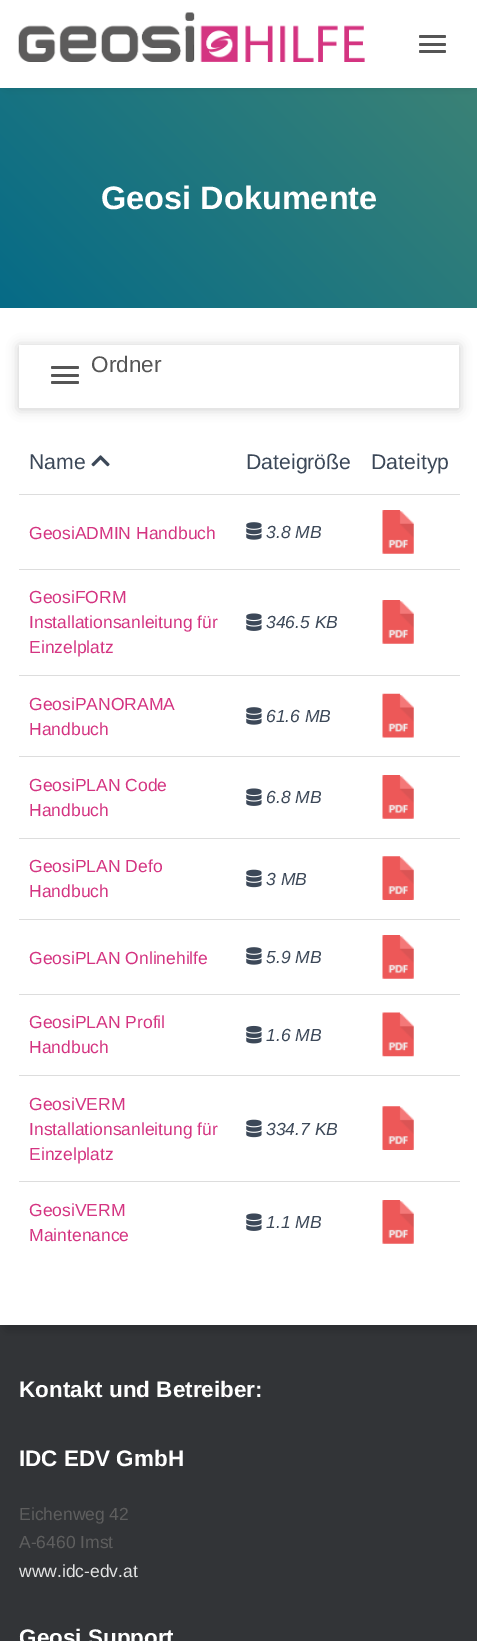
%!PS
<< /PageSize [477 1641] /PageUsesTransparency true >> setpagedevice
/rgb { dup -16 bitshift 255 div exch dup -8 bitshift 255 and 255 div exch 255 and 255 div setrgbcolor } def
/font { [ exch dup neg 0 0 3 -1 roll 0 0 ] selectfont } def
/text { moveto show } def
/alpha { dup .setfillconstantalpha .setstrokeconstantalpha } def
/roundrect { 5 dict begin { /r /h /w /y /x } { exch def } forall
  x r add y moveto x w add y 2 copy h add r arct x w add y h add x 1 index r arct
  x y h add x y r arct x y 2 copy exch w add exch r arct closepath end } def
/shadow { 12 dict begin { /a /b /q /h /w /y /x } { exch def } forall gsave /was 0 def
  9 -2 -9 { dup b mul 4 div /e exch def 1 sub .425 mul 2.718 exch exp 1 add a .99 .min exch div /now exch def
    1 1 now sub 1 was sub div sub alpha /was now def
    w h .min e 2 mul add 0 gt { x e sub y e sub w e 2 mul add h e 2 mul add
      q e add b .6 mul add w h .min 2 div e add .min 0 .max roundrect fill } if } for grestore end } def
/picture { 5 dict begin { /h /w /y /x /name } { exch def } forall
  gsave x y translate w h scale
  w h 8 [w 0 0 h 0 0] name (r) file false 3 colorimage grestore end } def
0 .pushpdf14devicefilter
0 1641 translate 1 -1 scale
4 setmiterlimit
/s1 { /LiberationSans-Bold 32.5 font 16#FFFFFF rgb } def
/s2 { /LiberationSans-Regular 22.5 font 16#555555 rgb } def
/s3 { /LiberationSans-Regular 21.25 font 16#3C4858 rgb } def
/s4 { /LiberationSans-Regular 17.5 font 16#D43481 rgb } def
/s5 { /LiberationSans-Italic 17.5 font 16#3C4858 rgb } def
/s6 { /LiberationSans-Bold 22.5 font 16#FFFFFF rgb } def
/s7 { /LiberationSans-Regular 17.5 font 16#5E5E5E rgb } def
/s8 { /LiberationSans-Regular 17.5 font 16#E2E3E3 rgb } def
16#323437 rgb
0 0 477 1641 rectfill
gsave 0 88 moveto 477 88 lineto 477 308 lineto 0 308 lineto closepath clip newpath
<< /ShadingType 2 /ColorSpace /DeviceRGB /Coords [24 406 454 -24] /Extend [true true] /Function << /FunctionType 2 /Domain [0 1] /C0 [0 0.412 0.537] /C1 [0.259 0.522 0.455] /N 1 >> >> shfill grestore
16#000000 rgb
8 9 462 72 0 6 0.42 shadow
16#FFFFFF rgb
0 0 477 88 rectfill
(pic1.raw) 18 12 347 50 picture
16#555555 rgb
419 35 27 3 1.5 roundrect fill
419 43 27 3 1.5 roundrect fill
419 50 27 3 1.5 roundrect fill
s1
(Geosi Dokumente) 101 209 text
16#000000 rgb
6 324 465 1005 0 6 0.2 shadow
16#FFFFFF rgb
0 308 477 1017 rectfill
16#000000 rgb
19 346 440 63 0 6 0.2 shadow
16#FFFFFF rgb
19 345 440 63 rectfill
s2
(Ordner) 91 372 text
51 366 28 3 1.5 roundrect fill
51 374 28 3 1.5 roundrect fill
51 381 28 3 1.5 roundrect fill
s3
(Name) 29 469 text
(pic2.raw) 91 455 19 12 picture
(Dateigröße) 246 469 text
(Dateityp) 371 469 text
16#DDDDDD rgb
19 494 441 1 rectfill
(pic3.raw) 382 510 32 44 picture
s4
(GeosiADMIN Handbuch) 29 539 text
(pic4.raw) 246 522 16 18 picture
s5
(3.8 MB) 266 538 text
16#DDDDDD rgb
19 569 441 1 rectfill
(pic3.raw) 382 600 32 44 picture
s4
(GeosiFORM) 29 603 text
(Installationsanleitung für) 29 628 text
(Einzelplatz) 29 653 text
(pic5.raw) 246 613 16 18 picture
s5
(346.5 KB) 266 628 text
16#DDDDDD rgb
19 675 441 1 rectfill
(pic6.raw) 382 693 32 45 picture
s4
(GeosiPANORAMA) 29 710 text
(Handbuch) 29 735 text
(pic4.raw) 246 707 16 18 picture
s5
(61.6 MB) 266 722 text
16#DDDDDD rgb
19 756 441 1 rectfill
(pic7.raw) 382 775 32 44 picture
s4
(GeosiPLAN Code) 29 791 text
(Handbuch) 29 816 text
(pic5.raw) 246 788 16 18 picture
s5
(6.8 MB) 266 803 text
16#DDDDDD rgb
19 838 441 1 rectfill
(pic8.raw) 382 856 32 44 picture
s4
(GeosiPLAN Defo) 29 872 text
(Handbuch) 29 897 text
(pic9.raw) 246 869 16 19 picture
s5
(3 MB) 266 885 text
16#DDDDDD rgb
19 919 441 1 rectfill
(pic3.raw) 382 935 32 44 picture
s4
(GeosiPLAN Onlinehilfe) 29 964 text
(pic4.raw) 246 947 16 18 picture
s5
(5.9 MB) 266 963 text
16#DDDDDD rgb
19 994 441 1 rectfill
(pic10.raw) 382 1012 32 45 picture
s4
(GeosiPLAN Profil) 29 1028 text
(Handbuch) 29 1053 text
(pic11.raw) 246 1025 16 19 picture
s5
(1.6 MB) 266 1041 text
16#DDDDDD rgb
19 1075 441 1 rectfill
(pic8.raw) 382 1106 32 44 picture
s4
(GeosiVERM) 29 1110 text
(Installationsanleitung für) 29 1135 text
(Einzelplatz) 29 1160 text
(pic9.raw) 246 1119 16 19 picture
s5
(334.7 KB) 266 1135 text
16#DDDDDD rgb
19 1181 441 1 rectfill
(pic3.raw) 382 1200 32 44 picture
s4
(GeosiVERM) 29 1216 text
(Maintenance) 29 1241 text
(pic5.raw) 246 1213 16 18 picture
s5
(1.1 MB) 266 1228 text
s6
(Kontakt und Betreiber:) 19 1397 text
(IDC EDV GmbH) 19 1466 text
s7
(Eichenweg 42) 19 1520 text
(A-6460 Imst) 19 1548 text
s8
(www.idc-edv.at) 19 1577 text
s6
(Geosi Support) 19 1645 text
.poppdf14devicefilter showpage
